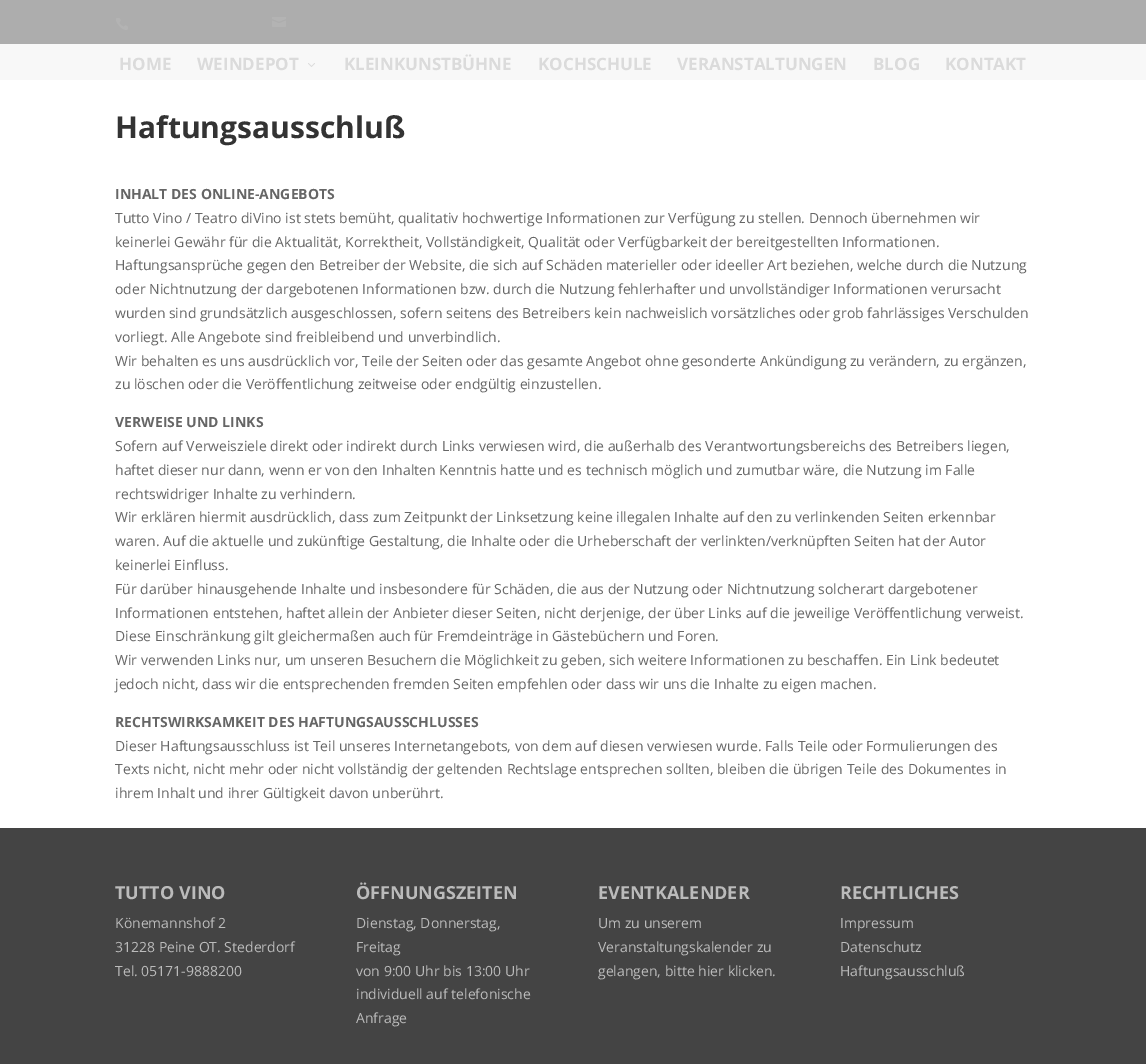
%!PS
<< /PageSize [1146 1064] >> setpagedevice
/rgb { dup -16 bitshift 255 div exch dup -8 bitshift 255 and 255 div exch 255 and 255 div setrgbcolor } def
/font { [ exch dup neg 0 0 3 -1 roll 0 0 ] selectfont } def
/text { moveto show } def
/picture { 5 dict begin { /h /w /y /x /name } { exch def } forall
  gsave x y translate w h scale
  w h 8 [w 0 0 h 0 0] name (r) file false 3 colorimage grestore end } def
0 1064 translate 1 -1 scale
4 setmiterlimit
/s1 { /OpenSans-Bold 17 font 16#DBDBDB rgb } def
/s2 { /OpenSans-Bold 30 font 16#333333 rgb } def
/s3 { /OpenSans-Bold 14 font 16#666666 rgb } def
/s4 { /OpenSans-Regular 14 font 16#666666 rgb } def
/s5 { /OpenSans-Bold 18 font 16#BBBBBB rgb } def
/s6 { /OpenSans-Regular 14 font 16#BBBBBB rgb } def
16#FFFFFF rgb
0 0 1146 1064 rectfill
16#ADADAD rgb
0 0 1146 44 rectfill
(pic1.raw) 116 18 12 12 picture
(pic2.raw) 272 17 14 10 picture
16#F8F8F8 rgb
0 44 1146 36 rectfill
s1
(HOME) 119 70 text
(WEINDEPOT) 197 70 text
(pic3.raw) 308 63 7 4 picture
(KLEINKUNSTBÜHNE) 344 70 text
(KOCHSCHULE) 538 70 text
(VERANSTALTUNGEN) 677 70 text
(BLOG) 873 70 text
(KONTAKT) 945 70 text
s2
(Haftungsausschluß) 115 138 text
s3
(INHALT DES ONLINE-ANGEBOTS) 115 199 text
s4
(Tutto Vino / Teatro diVino ist stets bemüht, qualitativ hochwertige Informationen zur Verfügung zu stellen. Dennoch übernehmen wir) 115 223 text
(keinerlei Gewähr für die Aktualität, Korrektheit, Vollständigkeit, Qualität oder Verfügbarkeit der bereitgestellten Informationen.) 115 247 text
(Haftungsansprüche gegen den Betreiber der Website, die sich auf Schäden materieller oder ideeller Art beziehen, welche durch die Nutzung) 115 270 text
(oder Nichtnutzung der dargebotenen Informationen bzw. durch die Nutzung fehlerhafter und unvollständiger Informationen verursacht) 115 294 text
(wurden sind grundsätzlich ausgeschlossen, sofern seitens des Betreibers kein nachweislich vorsätzliches oder grob fahrlässiges Verschulden) 115 318 text
(vorliegt. Alle Angebote sind freibleibend und unverbindlich.) 115 342 text
(Wir behalten es uns ausdrücklich vor, Teile der Seiten oder das gesamte Angebot ohne gesonderte Ankündigung zu verändern, zu ergänzen,) 115 366 text
(zu löschen oder die Veröffentlichung zeitweise oder endgültig einzustellen.) 115 389 text
s3
(VERWEISE UND LINKS) 115 427 text
s4
(Sofern auf Verweisziele direkt oder indirekt durch Links verwiesen wird, die außerhalb des Verantwortungsbereichs des Betreibers liegen,) 115 451 text
(haftet dieser nur dann, wenn er von den Inhalten Kenntnis hatte und es technisch möglich und zumutbar wäre, die Nutzung im Falle) 115 475 text
(rechtswidriger Inhalte zu verhindern.) 115 499 text
(Wir erklären hiermit ausdrücklich, dass zum Zeitpunkt der Linksetzung keine illegalen Inhalte auf den zu verlinkenden Seiten erkennbar) 115 522 text
(waren. Auf die aktuelle und zukünftige Gestaltung, die Inhalte oder die Urheberschaft der verlinkten/verknüpften Seiten hat der Autor) 115 546 text
(keinerlei Einfluss.) 115 570 text
(Für darüber hinausgehende Inhalte und insbesondere für Schäden, die aus der Nutzung oder Nichtnutzung solcherart dargebotener) 115 594 text
(Informationen entstehen, haftet allein der Anbieter dieser Seiten, nicht derjenige, der über Links auf die jeweilige Veröffentlichung verweist.) 115 618 text
(Diese Einschränkung gilt gleichermaßen auch für Fremdeinträge in Gästebüchern und Foren.) 115 641 text
(Wir verwenden Links nur, um unseren Besuchern die Möglichkeit zu geben, sich weitere Informationen zu beschaffen. Ein Link bedeutet) 115 665 text
(jedoch nicht, dass wir die entsprechenden fremden Seiten empfehlen oder dass wir uns die Inhalte zu eigen machen.) 115 689 text
s3
(RECHTSWIRKSAMKEIT DES HAFTUNGSAUSSCHLUSSES) 115 727 text
s4
(Dieser Haftungsausschluss ist Teil unseres Internetangebots, von dem auf diesen verwiesen wurde. Falls Teile oder Formulierungen des) 115 751 text
(Texts nicht, nicht mehr oder nicht vollständig der geltenden Rechtslage entsprechen sollten, bleiben die übrigen Teile des Dokumentes in) 115 774 text
(ihrem Inhalt und ihrer Gültigkeit davon unberührt.) 115 798 text
16#444444 rgb
0 828 1146 236 rectfill
s5
(TUTTO VINO) 115 899 text
s6
(Könemannshof 2) 115 928 text
(31228 Peine OT. Stederdorf) 115 952 text
(Tel. 05171-9888200) 115 976 text
s5
(ÖFFNUNGSZEITEN) 356 899 text
s6
(Dienstag, Donnerstag,) 356 928 text
(Freitag) 356 952 text
(von 9:00 Uhr bis 13:00 Uhr) 356 976 text
(individuell auf telefonische) 356 999 text
(Anfrage) 356 1023 text
s5
(EVENTKALENDER) 598 899 text
s6
(Um zu unserem) 598 928 text
(Veranstaltungskalender zu) 598 952 text
(gelangen, bitte hier klicken.) 598 976 text
s5
(RECHTLICHES) 840 899 text
s6
(Impressum) 840 928 text
(Datenschutz) 840 952 text
(Haftungsausschluß) 840 976 text
showpage
